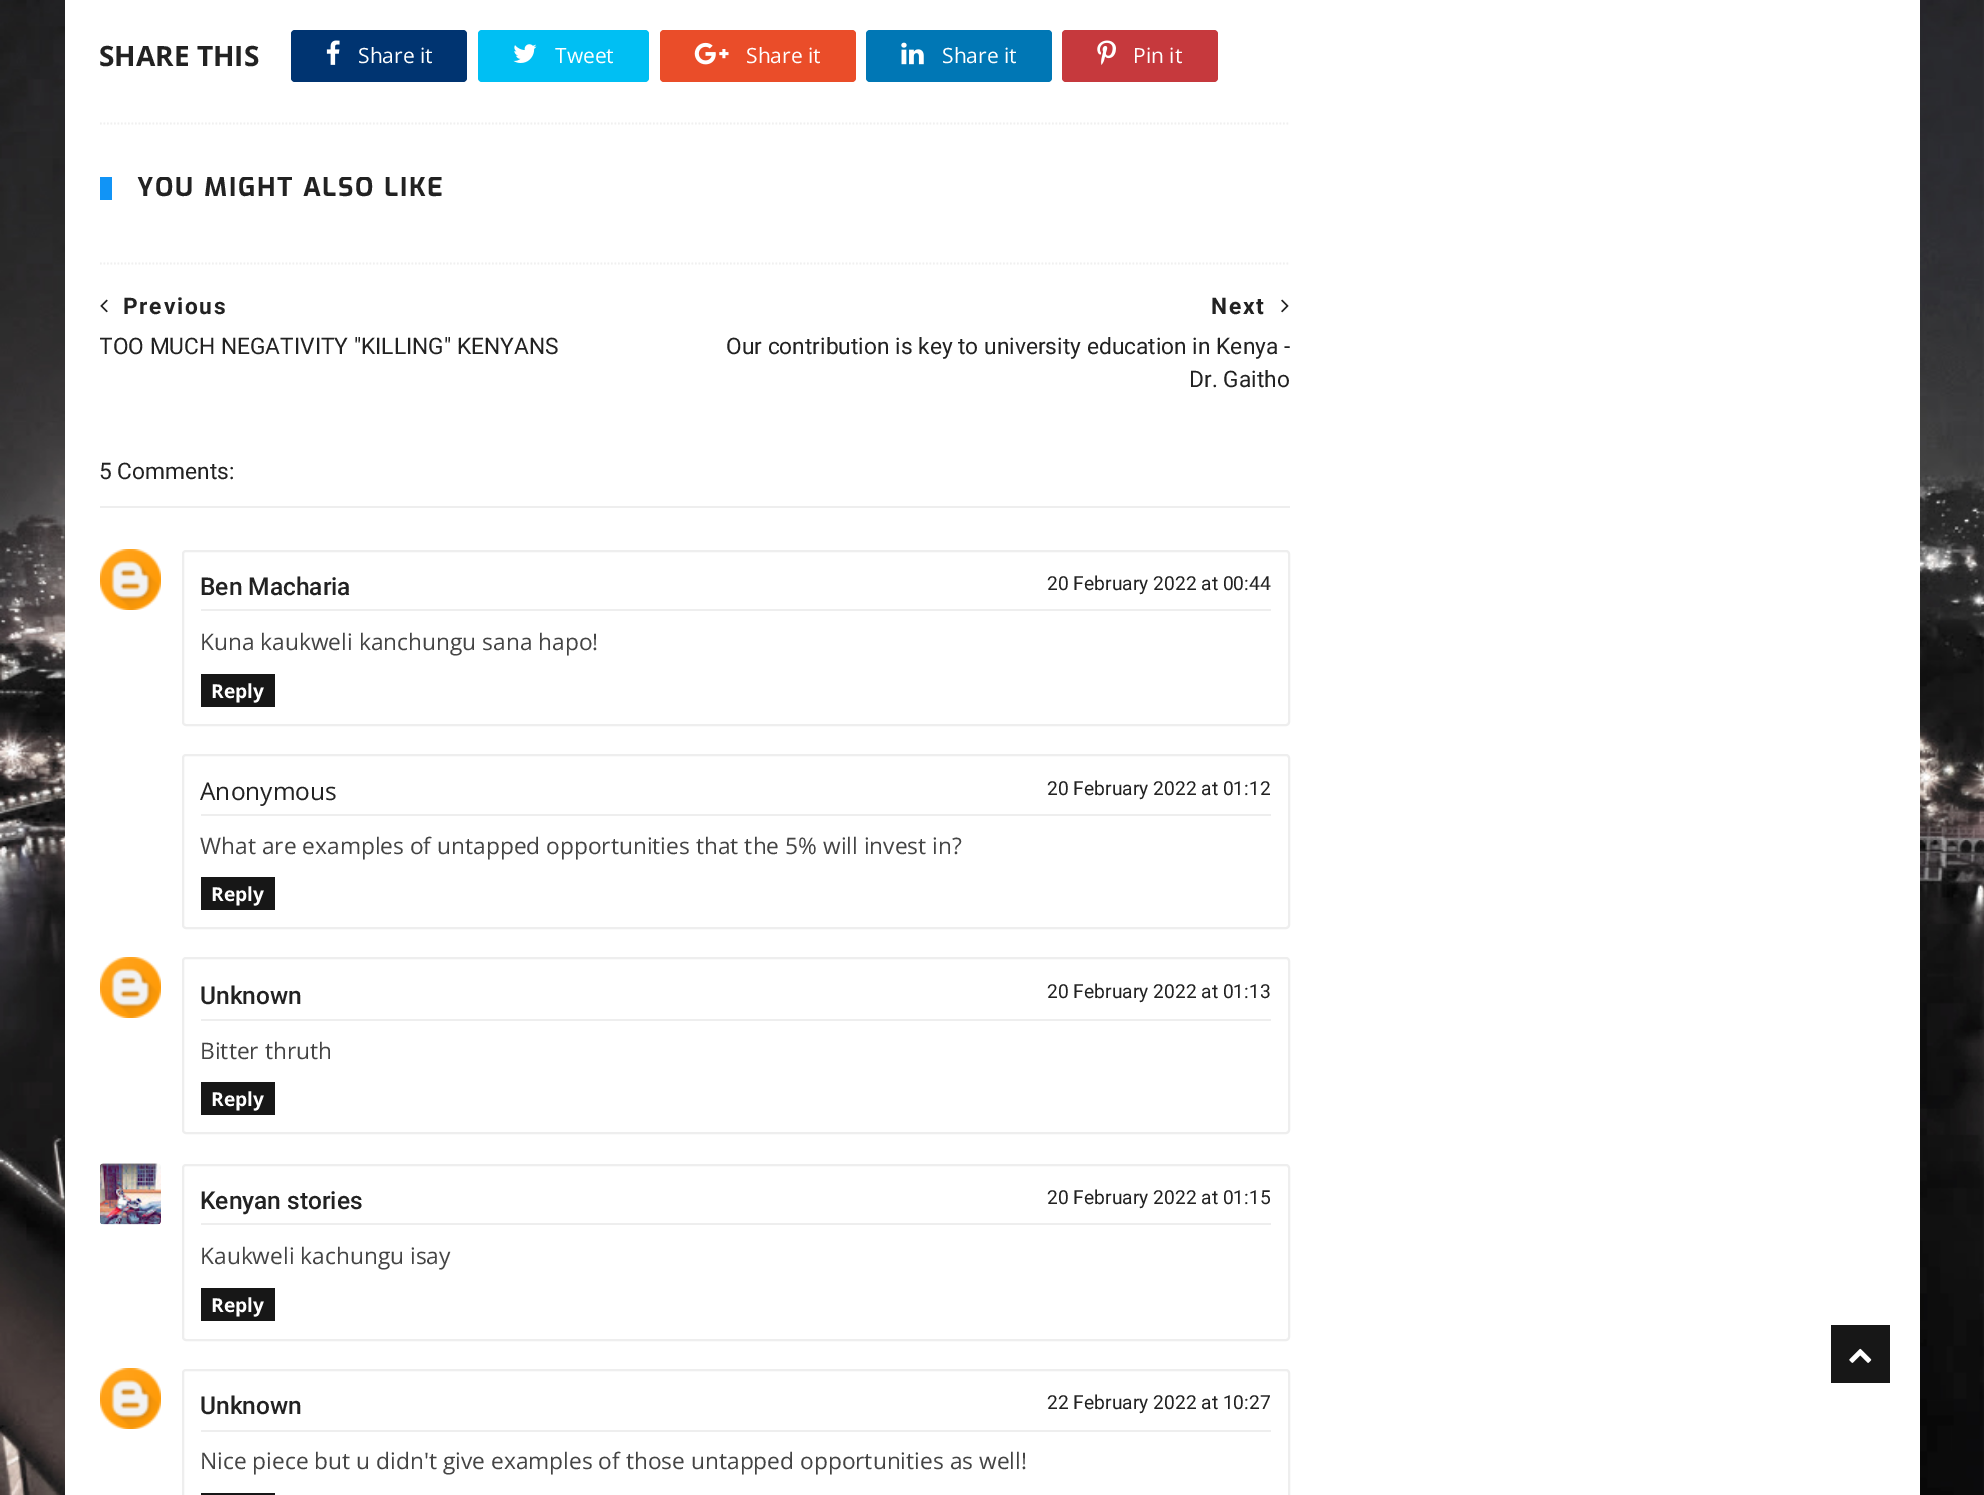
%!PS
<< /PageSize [1984 1495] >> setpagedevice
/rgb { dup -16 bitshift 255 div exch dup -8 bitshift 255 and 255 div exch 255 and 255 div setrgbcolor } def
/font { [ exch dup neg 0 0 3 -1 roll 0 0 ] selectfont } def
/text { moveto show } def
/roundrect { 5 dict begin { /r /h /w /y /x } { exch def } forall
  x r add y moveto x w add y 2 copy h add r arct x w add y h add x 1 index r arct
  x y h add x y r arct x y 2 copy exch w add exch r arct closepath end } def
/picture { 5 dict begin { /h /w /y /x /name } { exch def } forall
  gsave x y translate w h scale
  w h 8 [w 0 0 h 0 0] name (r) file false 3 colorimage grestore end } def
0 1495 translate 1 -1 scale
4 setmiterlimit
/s1 { /OpenSans-Bold 28 font 16#222222 rgb } def
/s2 { /OpenSans-Regular 21 font 16#FFFFFF rgb } def
/s3 { /Roboto-Regular 22.75 font 16#222222 rgb } def
/s4 { /Roboto-Medium 24.5 font 16#222222 rgb } def
/s5 { /Roboto-Regular 19.25 font 16#222222 rgb } def
/s6 { /OpenSans-Regular 22.75 font 16#444444 rgb } def
/s7 { /OpenSans-Bold 19.25 font 16#FFFFFF rgb } def
/s8 { /OpenSans-Regular 24.5 font 16#222222 rgb } def
16#FFFFFF rgb
0 0 1984 1495 rectfill
(pic1.raw) 0 0 1984 1495 picture
65 0 1855 1495 rectfill
16#F0F0F0 rgb
1.8 setlinewidth
[1.75 1.75] 0 setdash
100 123.5 moveto 1290 123.5 lineto stroke
s1
(SHARE THIS) 99 66 text
16#003471 rgb
291 30 176 52 4 roundrect fill
(pic2.raw) 326 40 14 25 picture
s2
(Share it) 358 63 text
16#00BFF3 rgb
478 30 171 52 4 roundrect fill
(pic3.raw) 513 44 24 19 picture
s2
(Tweet) 555 63 text
16#EA4D29 rgb
660 30 196 52 4 roundrect fill
(pic4.raw) 694 42 35 23 picture
s2
(Share it) 746 63 text
16#0077B5 rgb
866 30 186 52 4 roundrect fill
(pic5.raw) 901 42 23 23 picture
s2
(Share it) 942 63 text
16#C6393D rgb
1062 30 156 52 4 roundrect fill
(pic6.raw) 1097 40 19 25 picture
s2
(Pin it) 1133 63 text
16#1194F6 rgb
100 177 12 23 rectfill
gsave
112 177 333 23 rectclip
/Exo-Bold 26.25 font
16#222222 rgb
137 196 moveto 1.75 0 (YOU MIGHT ALSO LIKE) ashow
grestore
16#F0F0F0 rgb
100 263.5 moveto 1290 263.5 lineto stroke
(pic7.raw) 100 299 8 14 picture
/Roboto-Bold 22.75 font
16#222222 rgb
123 314 moveto 1.75 0 (Previous) ashow
gsave
100 264 1190 132 rectclip
s3
(TOO MUCH NEGATIVITY "KILLING" KENYANS) 99 354 text
grestore
1211 314 moveto 1.75 0 (Next) ashow
(pic8.raw) 1281 299 8 14 picture
s3
(Our contribution is key to university education in Kenya -) 726 354 text
(Dr. Gaitho) 1189 387 text
16#EEEEEE rgb
100 506 1190 2 rectfill
s3
(5 Comments:) 99 479 text
(pic9.raw) 100 549 61 61 picture
16#EEEEEE rgb
2 setlinewidth
[] 0 setdash
183 551 1106 174 3 roundrect stroke
201 609 1070 2 rectfill
s4
(Ben Macharia) 200 595 text
s5
(20 February 2022 at 00:44) 1047 590 text
s6
(Kuna kaukweli kanchungu sana hapo!) 200 650 text
16#171717 rgb
201 674 74 33 rectfill
s7
(Reply) 211 698 text
16#EEEEEE rgb
183 755 1106 173 3 roundrect stroke
201 814 1070 2 rectfill
s8
(Anonymous) 200 800 text
s5
(20 February 2022 at 01:12) 1047 795 text
s6
(What are examples of untapped opportunities that the 5% will invest in?) 200 854 text
16#171717 rgb
201 877 74 33 rectfill
s7
(Reply) 211 901 text
(pic10.raw) 100 957 61 61 picture
16#EEEEEE rgb
183 958 1106 175 3 roundrect stroke
201 1019 1070 2 rectfill
s4
(Unknown) 200 1004 text
s5
(20 February 2022 at 01:13) 1047 998 text
s6
(Bitter thruth) 200 1059 text
16#171717 rgb
201 1082 74 33 rectfill
s7
(Reply) 211 1106 text
(pic11.raw) 100 1163 61 62 picture
16#EEEEEE rgb
183 1165 1106 175 3 roundrect stroke
201 1223 1070 2 rectfill
s4
(Kenyan stories) 200 1209 text
s5
(20 February 2022 at 01:15) 1047 1204 text
s6
(Kaukweli kachungu isay) 200 1264 text
16#171717 rgb
201 1288 74 33 rectfill
s7
(Reply) 211 1312 text
(pic12.raw) 100 1368 61 61 picture
16#EEEEEE rgb
183 1370 1106 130 3 roundrect stroke
201 1430 1070 2 rectfill
s4
(Unknown) 200 1414 text
s5
(22 February 2022 at 10:27) 1047 1409 text
s6
(Nice piece but u didn't give examples of those untapped opportunities as well!) 200 1469 text
16#171717 rgb
201 1493 74 2 rectfill
1831 1325 59 58 rectfill
(pic13.raw) 1849 1348 23 15 picture
showpage
